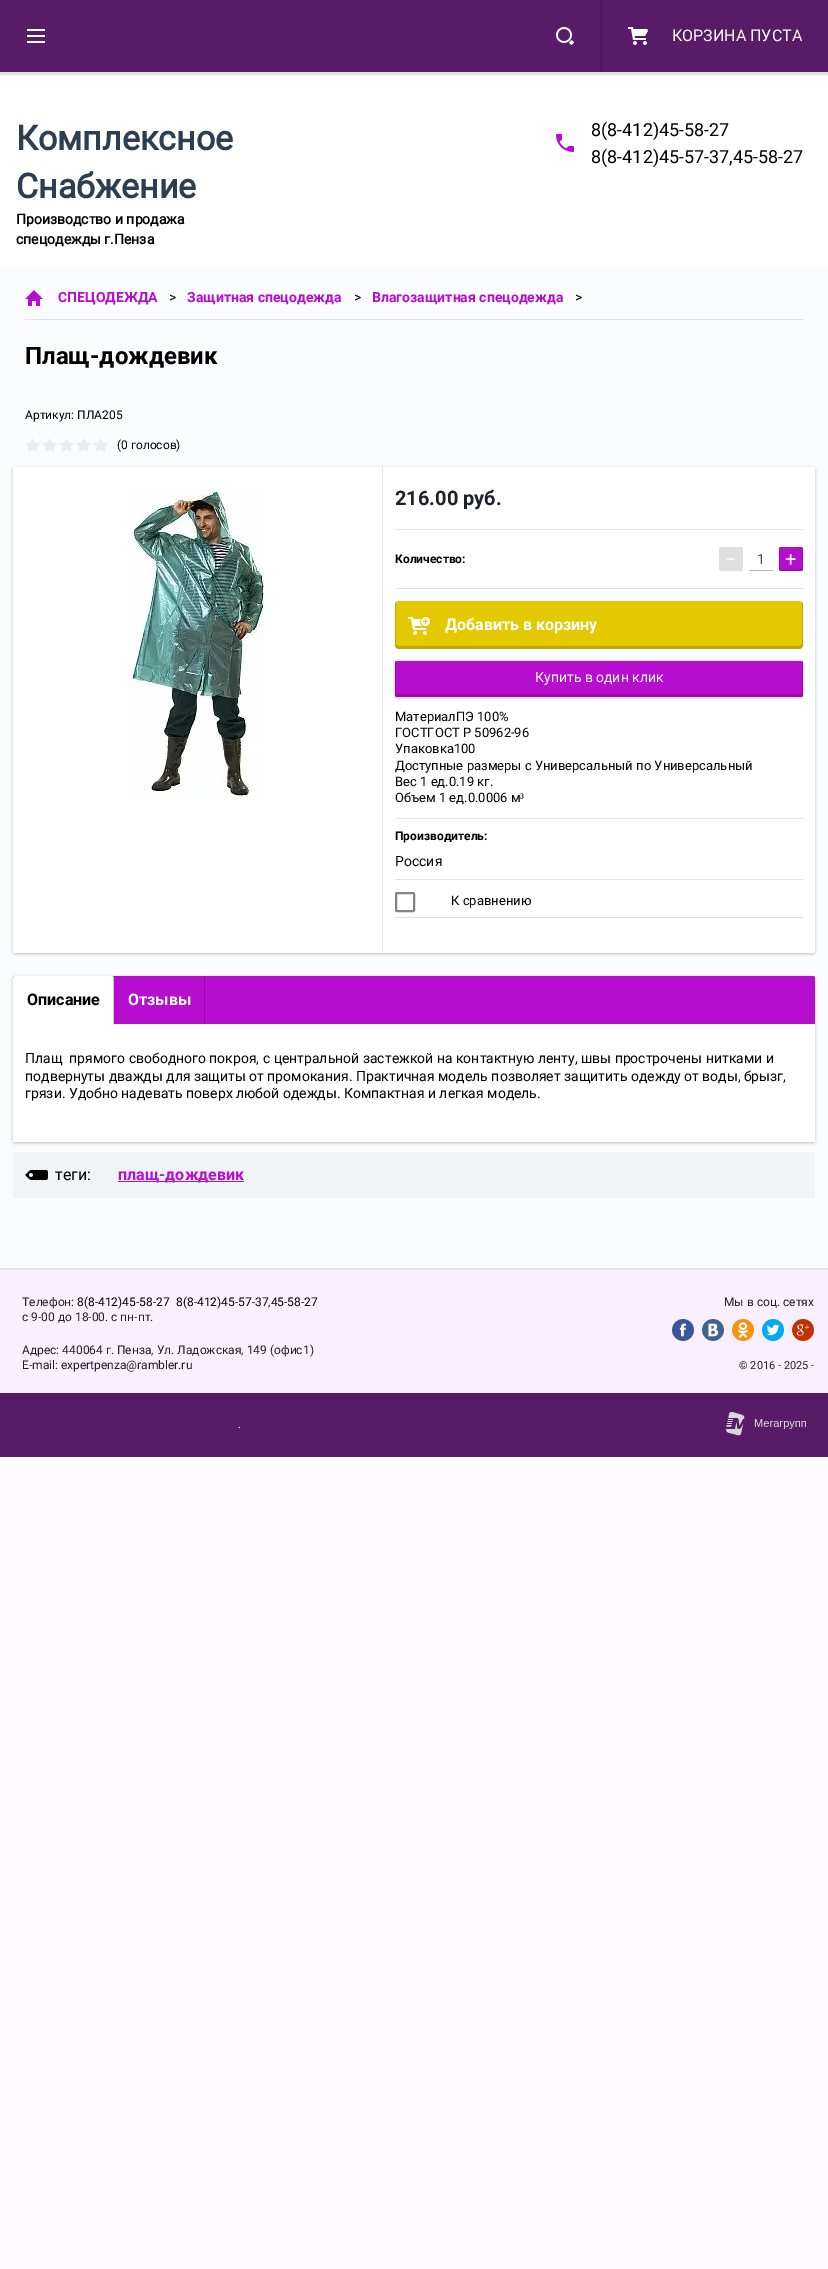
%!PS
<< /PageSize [828 2269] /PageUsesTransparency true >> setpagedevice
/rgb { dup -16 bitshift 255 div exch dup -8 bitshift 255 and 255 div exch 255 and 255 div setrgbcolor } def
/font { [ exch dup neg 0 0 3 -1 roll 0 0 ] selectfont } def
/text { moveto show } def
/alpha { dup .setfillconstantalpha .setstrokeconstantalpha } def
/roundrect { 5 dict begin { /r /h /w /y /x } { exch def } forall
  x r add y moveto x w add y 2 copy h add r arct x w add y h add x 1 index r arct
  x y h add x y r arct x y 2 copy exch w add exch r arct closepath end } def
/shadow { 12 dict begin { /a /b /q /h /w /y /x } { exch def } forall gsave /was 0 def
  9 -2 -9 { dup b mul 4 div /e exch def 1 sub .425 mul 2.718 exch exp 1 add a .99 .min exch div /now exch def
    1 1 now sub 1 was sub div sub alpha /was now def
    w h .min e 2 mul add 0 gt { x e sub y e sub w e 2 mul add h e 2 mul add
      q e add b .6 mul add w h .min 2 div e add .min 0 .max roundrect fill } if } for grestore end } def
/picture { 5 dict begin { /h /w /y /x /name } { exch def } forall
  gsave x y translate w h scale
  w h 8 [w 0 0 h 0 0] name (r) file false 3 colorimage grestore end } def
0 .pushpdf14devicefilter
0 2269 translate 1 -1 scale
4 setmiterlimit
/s1 { /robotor-Regular 16 font 16#FFFFFF rgb } def
/s2 { /robotor-Bold 34 font 16#2C3E50 rgb } def
/s3 { /robotor-Bold 14 font 16#000000 rgb } def
/s4 { /robotor-Regular 18 font 16#000000 rgb } def
/s5 { /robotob-Bold 14 font 16#B60DCF rgb } def
/s6 { /robotor-Regular 14 font 16#000000 rgb } def
/s7 { /robotob-Bold 24 font 16#000000 rgb } def
/s8 { /robotor-Regular 12 font 16#000000 rgb } def
/s9 { /robotob-Bold 20 font 16#20202A rgb } def
/s10 { /robotob-Bold 12 font 16#000000 rgb } def
/s11 { /robotor-Regular 20 font 16#FFFFFF rgb } def
/s12 { /robotor-Regular 14 font 16#484848 rgb } def
/s13 { /robotob-Bold 16 font 16#FFFFFF rgb } def
/s14 { /robotor-Regular 14 font 16#FFFFFF rgb } def
/s15 { /robotor-Regular 13 font 16#000000 rgb } def
/s16 { /LiberationSerif-Regular 13 font 16#000000 rgb } def
/s17 { /robotob-Bold 16 font 16#000000 rgb } def
/s18 { /robotor-Regular 16 font 16#000000 rgb } def
/s19 { /robotob-Bold 16 font 16#B60DCF rgb } def
/s20 { /robotor-Regular 12 font 16#20202A rgb } def
/s21 { /robotor-Regular 11 font 16#20202A rgb } def
/s22 { /robotor-Regular 11 font 16#FFFFFF rgb } def
16#FEFBFF rgb
0 0 828 2269 rectfill
16#FFFFFF rgb
0 75 828 191 rectfill
16#E0E0E0 rgb
0 72 828 3 rectfill
16#581B68 rgb
0 0 828 72 rectfill
(pic1.raw) 27 29 18 14 picture
(pic2.raw) 556 27 18 18 picture
16#461653 rgb
601 0 1 72 rectfill
(pic3.raw) 628 27 20 18 picture
s1
(КОРЗИНА ПУСТА) 672 41 text
s2
(Комплексное) 16 150 text
(Снабжение) 16 198 text
s3
(Производство и продажа) 16 224 text
(спецодежды г.Пенза) 16 244 text
s4
(8\(8-412\)45-58-27) 591 136 text
(pic4.raw) 556 134 18 18 picture
(8\(8-412\)45-57-37,45-58-27) 591 163 text
16#FBFCFD rgb
0 266 828 1002 2 roundrect fill
16#E1E2E3 rgb
25 319 778 1 rectfill
(pic5.raw) 25 290 18 16 picture
s5
(СПЕЦОДЕЖДА) 58 302 text
s6
(>) 169 302 text
s5
(Защитная спецодежда) 187 302 text
s6
(>) 354 302 text
s5
(Влагозащитная спецодежда) 372 302 text
s6
(>) 575 302 text
s7
(Плащ-дождевик) 25 364 text
s8
(Артикул: ПЛА205) 25 419 text
(pic6.raw) 25 438 83 14 picture
(\(0 голосов\)) 117 449 text
13 468 802 486 2 1.5 0.24 shadow
16#FFFFFF rgb
13 467 802 486 2 roundrect fill
(pic7.raw) 128 487 136 312 picture
16#E6E6E6 rgb
382 467 1 486 rectfill
s9
(216.00 руб.) 395 505 text
16#E5E5E5 rgb
395 529 408 1 rectfill
395 588 408 1 rectfill
s10
(Количество:) 395 563 text
16#DFDFDF rgb
719 547 24 24 2 roundrect fill
s11
(−) 725 566 text
16#B2B2B2 rgb
749 570 24 1 rectfill
s12
(1) 757 564 text
16#B60DCF rgb
779 547 24 24 2 roundrect fill
0.16 alpha
16#000000 rgb
781 547 moveto 780 547 779 548 779 549 curveto 779 569 lineto 779 570 780 571 781 571 curveto 801 571 lineto 802 571 803 570 803 569 curveto 803 549 lineto 803 548.5 802.5 547.5 802 547.5 curveto 802.5 567 lineto 802 569 801 569.5 798.5 569 curveto 791 569 lineto 789.5 569 782 570 780.5 569 curveto 780 567.5 lineto 780 553.5 lineto 779.5 552.5 779.5 547 781 547 curveto closepath fill
1 alpha
s11
(+) 785 566 text
16#E4C800 rgb
395 601 408 48 4 roundrect fill
0.16 alpha
16#000000 rgb
396 602 moveto 395 603 395 604 395 605 curveto 395 645 lineto 395 647 397 649 399 649 curveto 799 649 lineto 801 649 803 647 803 645 curveto 803 605 lineto 803 604 803 603 802 602 curveto 802 643 lineto 802 645 801 646 799 646 curveto 399 646 lineto 397 646 396 645 396 643 curveto closepath fill
1 alpha
(pic8.raw) 408 617 22 18 picture
s13
(Добавить в корзину) 445 630 text
16#000000 rgb
395 662 408 36 2 1.5 0.24 shadow
16#B60DCF rgb
395 661 408 36 2 roundrect fill
0.16 alpha
16#000000 rgb
396 661 moveto 395 662 395 662 395 663 curveto 395 695 lineto 395 696 396 697 397 697 curveto 801 697 lineto 802 697 803 696 803 695 curveto 803 663 lineto 803 662 803 662 802 661 curveto 802 693 lineto 802 694 802 694 801 694 curveto 397 694 lineto 396 694 396 694 396 693 curveto closepath fill
1 alpha
s14
(Купить в один клик) 535 682 text
s15
(МатериалПЭ 100%) 395 721 text
(ГОСТГОСТ Р 50962-96) 395 737 text
(Упаковка100) 395 753 text
(Доступные размеры с Универсальный по Универсальный) 395 770 text
(Вес 1 ед.0.19 кг.) 395 786 text
(Объем 1 ед.0.0006 м) 395 802 text
s16
(³) 520 802 text
16#E5E5E5 rgb
395 818 408 1 rectfill
395 879 408 1 rectfill
s10
(Производитель:) 395 840 text
s6
(Россия) 395 866 text
16#DEDEDE rgb
395 917 408 1 rectfill
16#848484 rgb
2 setlinewidth
396 893 18 18 1 roundrect stroke
s15
(К сравнению) 451 905 text
13 977 802 166 2 1.5 0.24 shadow
16#B60DCF rgb
13 976 802 166 2 roundrect fill
16#FFFFFF rgb
15 976 moveto 112 976 lineto 113 976 114 977 114 978 curveto 114 1024 lineto 13 1024 lineto 13 978 lineto 13 977 14 976 15 976 curveto closepath fill
s17
(Описание) 27 1005 text
0.2 alpha
113 976 1 48 rectfill
1 alpha
s13
(Отзывы) 128 1005 text
16#920AA6 rgb
204 976 1 48 rectfill
16#FFFFFF rgb
13 1024 802 118 rectfill
s6
(Плащ  прямого свободного покроя, с центральной застежкой на контактную ленту, швы прострочены нитками и) 25 1063 text
(подвернуты дважды для защиты от промокания. Практичная модель позволяет защитить одежду от воды, брызг,) 25 1081 text
(грязи. Удобно надевать поверх любой одежды. Компактная и легкая модель.) 25 1098 text
16#F1F4F7 rgb
13 1152 moveto 815 1152 lineto 815 1196 lineto 815 1197 814 1198 813 1198 curveto 15 1198 lineto 14 1198 13 1197 13 1196 curveto closepath fill
(pic9.raw) 25 1170 23 10 picture
s18
(теги:) 55 1180 text
16#B60DCF rgb
118 1181 126 1 rectfill
s19
(плащ-дождевик) 118 1180 text
16#FAEFFC rgb
0 1270 828 123 rectfill
16#EBE1ED rgb
0 1268 828 2 rectfill
s20
(Телефон:) 22 1306 text
s8
(8\(8-412\)45-58-27) 77 1306 text
(8\(8-412\)45-57-37,45-58-27) 176 1306 text
s20
(с 9-00 до 18-00. с пн-пт.) 22 1321 text
(Адрес: 440064 г. Пенза, Ул. Ладожская, 149 \(офис1\)) 22 1354 text
(Е-mail: expertpenza@rambler.ru) 22 1369 text
(Мы в соц. сетях) 724 1306 text
(pic10.raw) 672 1319 22 22 picture
(pic11.raw) 702 1319 22 22 picture
(pic12.raw) 732 1319 22 22 picture
(pic13.raw) 762 1319 22 22 picture
(pic14.raw) 792 1319 22 22 picture
s21
(© 2016 - 2025 -) 739 1369 text
16#581B68 rgb
0 1393 828 64 rectfill
s22
(.) 238 1428 text
(pic15.raw) 726 1412 80 24 picture
.poppdf14devicefilter showpage
